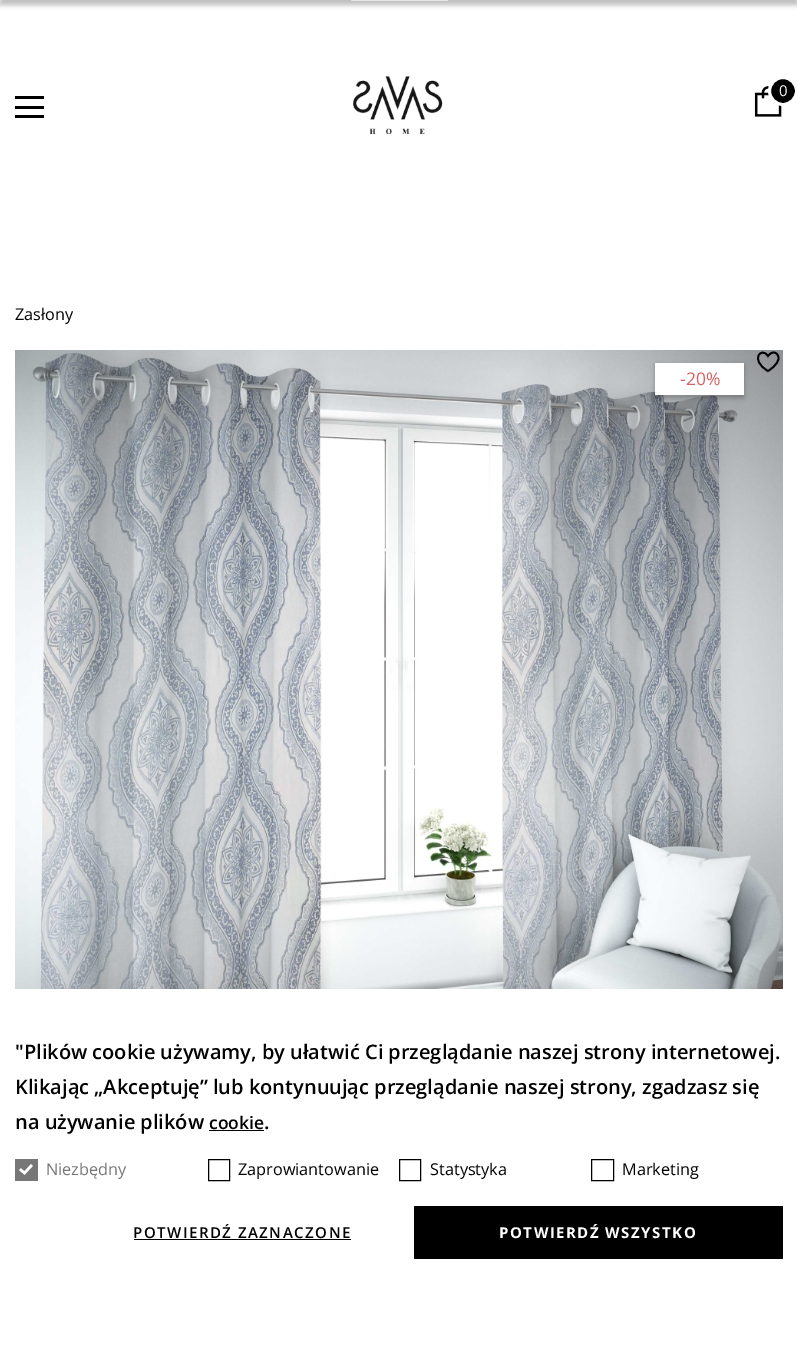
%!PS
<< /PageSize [797 1370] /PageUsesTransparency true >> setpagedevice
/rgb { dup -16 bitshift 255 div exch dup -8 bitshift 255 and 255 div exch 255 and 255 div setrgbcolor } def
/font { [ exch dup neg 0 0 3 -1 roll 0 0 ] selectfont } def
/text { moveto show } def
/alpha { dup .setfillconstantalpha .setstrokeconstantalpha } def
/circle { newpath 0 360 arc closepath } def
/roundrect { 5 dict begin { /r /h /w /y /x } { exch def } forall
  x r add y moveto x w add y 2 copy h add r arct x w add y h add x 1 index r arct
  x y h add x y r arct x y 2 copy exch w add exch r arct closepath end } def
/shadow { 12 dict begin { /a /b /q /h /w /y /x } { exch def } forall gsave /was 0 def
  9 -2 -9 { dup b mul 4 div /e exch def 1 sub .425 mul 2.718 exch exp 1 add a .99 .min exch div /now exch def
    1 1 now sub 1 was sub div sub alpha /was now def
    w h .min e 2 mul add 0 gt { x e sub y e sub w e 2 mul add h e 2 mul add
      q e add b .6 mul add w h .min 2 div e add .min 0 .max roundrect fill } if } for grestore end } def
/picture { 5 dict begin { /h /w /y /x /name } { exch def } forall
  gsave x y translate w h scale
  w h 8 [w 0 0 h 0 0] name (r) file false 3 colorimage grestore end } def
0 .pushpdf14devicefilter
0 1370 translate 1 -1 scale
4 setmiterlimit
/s1 { /OpenSans-Regular 16.25 font 16#000000 rgb } def
/s2 { /OpenSans-Regular 17.5 font 16#D76161 rgb } def
/s3 { /OpenSans-SemiBold 20 font 16#000000 rgb } def
/s4 { /OpenSans-SemiBold 17.5 font 16#000000 rgb } def
/s5 { /OpenSans-Regular 16.25 font 16#777777 rgb } def
16#FFFFFF rgb
0 0 797 1370 rectfill
16#000000 rgb
0 -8 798 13 0 2.5 0.25 shadow
(pic1.raw) 351 0 97 1 picture
(pic2.raw) 353 76 90 59 picture
(pic3.raw) 754 86 28 31 picture
783 91 13.5 circle gsave fill grestore
16#FFFFFF rgb
3 setlinewidth
stroke
/OpenSans-Regular 15 font
779 96 moveto 1.5 0 (0) ashow
16#000000 rgb
15 96 29 3 rectfill
15 106 29 3 rectfill
15 115 29 3 rectfill
s1
(Zasłony) 15 320 text
(pic4.raw) 15 350 768 639 picture
1.8 setlinewidth
1 setlinecap
778.5 358 moveto 778.5 365 768 371 768 371 curveto 749 360 761.5 346 768 356 curveto 768 356 770.5 352.5 773.5 352.5 curveto 776.5 352.5 778.5 355 778.5 358 curveto closepath stroke
655 365 89 33 0 2.5 0.25 shadow
16#FFFFFF rgb
655 363 89 32 rectfill
s2
(-20%) 680 385 text
s3
("Plików cookie używamy, by ułatwić Ci przeglądanie naszej strony internetowej.) 15 1059 text
(Klikając „Akceptuję” lub kontynuując przeglądanie naszej strony, zgadzasz się) 15 1094 text
(na używanie plików) 15 1129 text
s4
(cookie) 209 1129 text
209 1130 55 1 rectfill
s3
(.) 264 1129 text
16#777777 rgb
15 1159 23 22 rectfill
16#FFFFFF rgb
2.5 setlinewidth
2 setlinecap
31 1166 moveto 24.5 1173 lineto 21 1170 lineto stroke
s5
(Niezbędny) 46 1175 text
16#000000 rgb
1 setlinewidth
0 setlinecap
208.5 1159.5 21 21 rectstroke
(Zaprowiantowanie) 238 1175 text
399.5 1159.5 21 21 rectstroke
(Statystyka) 430 1175 text
591.5 1159.5 22 21 rectstroke
(Marketing) 622 1175 text
/OpenSans-SemiBold 15 font
133 1238 moveto 1.5 0 (POTWIERDŹ ZAZNACZONE) ashow
134 1239 217 1 rectfill
414 1206 369 53 rectfill
/OpenSans-Bold 15 font
16#FFFFFF rgb
499 1238 moveto 1.5 0 (POTWIERDŹ WSZYSTKO) ashow
.poppdf14devicefilter showpage
